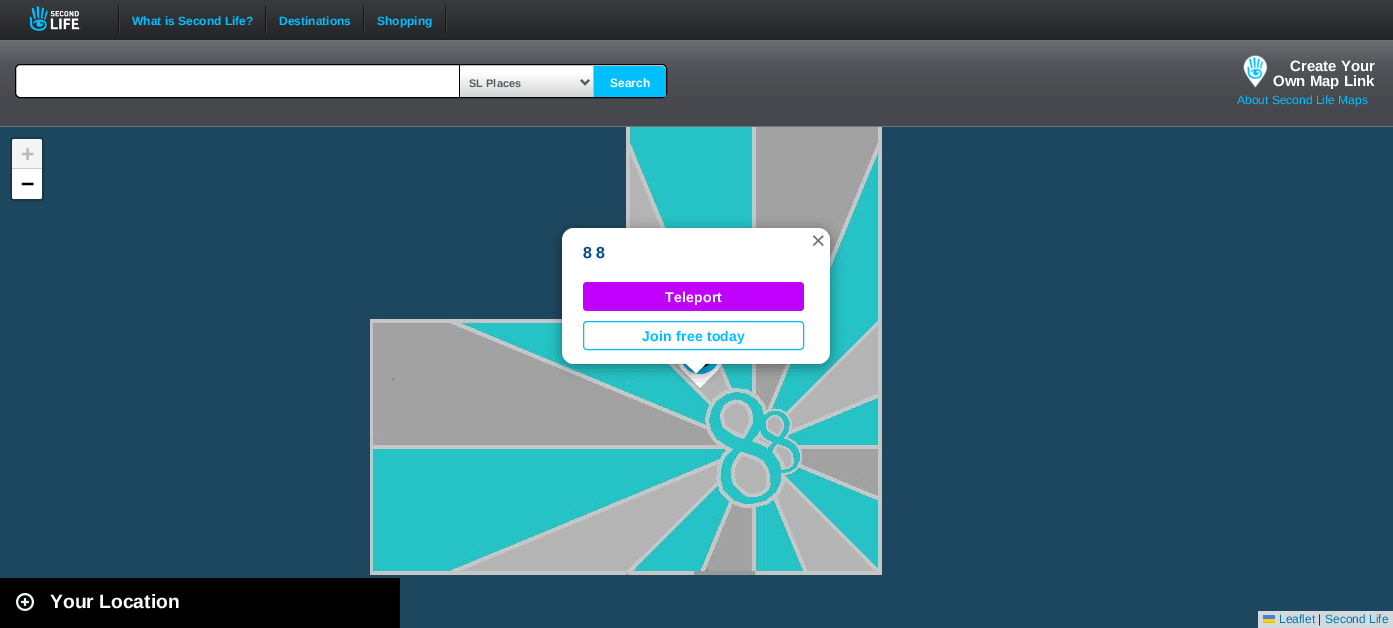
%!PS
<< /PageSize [1393 628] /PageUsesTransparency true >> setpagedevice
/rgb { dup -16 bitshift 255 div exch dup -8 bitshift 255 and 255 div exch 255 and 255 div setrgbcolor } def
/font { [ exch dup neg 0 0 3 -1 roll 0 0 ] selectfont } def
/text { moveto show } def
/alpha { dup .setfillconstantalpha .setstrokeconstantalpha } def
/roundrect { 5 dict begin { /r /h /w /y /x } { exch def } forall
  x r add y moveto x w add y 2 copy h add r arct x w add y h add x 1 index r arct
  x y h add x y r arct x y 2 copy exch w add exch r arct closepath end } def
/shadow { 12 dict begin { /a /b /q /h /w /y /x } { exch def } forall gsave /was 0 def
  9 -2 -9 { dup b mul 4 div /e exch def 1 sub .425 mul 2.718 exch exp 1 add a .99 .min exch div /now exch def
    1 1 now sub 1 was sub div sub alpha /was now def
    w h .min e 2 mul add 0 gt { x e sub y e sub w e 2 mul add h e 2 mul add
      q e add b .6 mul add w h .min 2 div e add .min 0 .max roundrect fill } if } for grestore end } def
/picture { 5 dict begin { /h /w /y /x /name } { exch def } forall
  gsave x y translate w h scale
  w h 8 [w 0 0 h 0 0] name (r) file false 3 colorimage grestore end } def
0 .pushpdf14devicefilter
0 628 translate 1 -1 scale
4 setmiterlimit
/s1 { /LiberationSans-Bold 12 font 16#00BFFF rgb } def
/s2 { /LiberationSans-Bold 11 font 16#595C62 rgb } def
/s3 { /LiberationSans-Bold 12 font 16#FFFFFF rgb } def
/s4 { /LiberationSans-Bold 15 font 16#FFFFFF rgb } def
/s5 { /LiberationSans-Regular 12 font 16#00BFFF rgb } def
/s6 { /DejaVuSansMono-Bold 22 font 16#BBBBBB rgb } def
/s7 { /DejaVuSansMono-Bold 22 font 16#000000 rgb } def
/s8 { /LiberationSans-Regular 12 font 16#0078A8 rgb } def
/s9 { /LiberationSans-Regular 12 font 16#333333 rgb } def
/s10 { /LiberationSans-Regular 25 font 16#757575 rgb } def
/s11 { /LiberationSans-Bold 16 font 16#014A8E rgb } def
/s12 { /LiberationSans-Bold 19.25 font 16#FFFFFF rgb } def
16#1D475F rgb
0 0 1393 628 rectfill
(pic1.raw) 0 0 1393 40 picture
(pic2.raw) 29 6 52 25 picture
16#3A3E42 rgb
119 5 1 28 rectfill
16#161616 rgb
118 5 1 28 rectfill
s1
(What is Second Life?) 132 25 text
16#3A3E42 rgb
266 5 1 28 rectfill
16#161616 rgb
265 5 1 28 rectfill
s1
(Destinations) 279 25 text
16#3A3E42 rgb
364 5 1 28 rectfill
16#161616 rgb
363 5 1 28 rectfill
s1
(Shopping) 377 25 text
16#3A3E42 rgb
446 5 1 28 rectfill
16#161616 rgb
445 5 1 28 rectfill
gsave 0 40 moveto 1393 40 lineto 1393 126 lineto 0 126 lineto closepath clip newpath
<< /ShadingType 2 /ColorSpace /DeviceRGB /Coords [0 126 0 40] /Extend [true true] /Function << /FunctionType 3 /Domain [0 1] /Functions [<< /FunctionType 2 /Domain [0 1] /C0 [0.278 0.282 0.302] /C1 [0.278 0.282 0.302] /N 1 >> << /FunctionType 2 /Domain [0 1] /C0 [0.278 0.282 0.302] /C1 [0.318 0.333 0.349] /N 1 >> << /FunctionType 2 /Domain [0 1] /C0 [0.318 0.333 0.349] /C1 [0.42 0.431 0.451] /N 1 >>] /Bounds [0.29 0.71] /Encode [0 1 0 1 0 1] >> >> shfill grestore
16#72777E rgb
0 126 1393 1 rectfill
16#FFFFFF rgb
15.5 64.5 651 33 4.5 roundrect gsave fill grestore
16#000000 rgb
stroke
(pic3.raw) 460 66 133 31 picture
16#BBBBBB rgb
459 65 135 1 rectfill
593 65 1 32 rectfill
16#000000 rgb
459 65 1 32 rectfill
16#595C62 rgb
2 setlinewidth
581 80 moveto 585 84 lineto 589 80 lineto stroke
s2
(SL Places) 469 87 text
gsave
16 65 650 32 4 roundrect clip newpath
16#00BFFF rgb
594 66 moveto 661 66 lineto 664 66 666 68 666 71 curveto 666 95 lineto 666 98 664 100 661 100 curveto 594 100 lineto closepath fill
grestore
s3
(Search) 610 87 text
(pic4.raw) 1243 55 25 33 picture
s4
(Create Your) 1290 71 text
(Own Map Link) 1273 86 text
s5
(About Second Life Maps) 1237 104 text
16#17394C rgb
11 138 32 62 3 roundrect stroke
16#F4F4F4 rgb
14 139 moveto 40 139 lineto 41 139 42 140 42 141 curveto 42 169 lineto 12 169 lineto 12 141 lineto 12 140 13 139 14 139 curveto closepath fill
16#CCCCCC rgb
12 168 30 1 rectfill
s6
(+) 21 161 text
16#FFFFFF rgb
12 169 moveto 42 169 lineto 42 197 lineto 42 198 41 199 40 199 curveto 14 199 lineto 13 199 12 198 12 197 curveto closepath fill
s7
(−) 21 191 text
16#D2DADF rgb
1258 611 135 17 rectfill
s8
(Leaflet) 1279 623 text
16#4C7BE1 rgb
1263 615 12 4 rectfill
16#FFD500 rgb
1263 619 12 3 rectfill
16#E0BC00 rgb
1263 622 12 1 rectfill
s9
(|) 1318 623 text
s8
(Second Life) 1325 623 text
(pic5.raw) 626 127 256 192 picture
(pic6.raw) 370 319 256 256 picture
(pic7.raw) 626 319 256 256 picture
(pic8.raw) 678 364 44 24 picture
16#000000 rgb
562 231 268 136 12 7 0.4 shadow
16#FFFFFF rgb
562 228 268 136 12 roundrect fill
s10
(×) 811 249 text
s11
(8 8) 583 258 text
16#BF00FF rgb
583 282 221 29 4 roundrect fill
/LiberationSans-Bold 14 font
16#FFFFFF rgb
665 302 moveto 0.25 0 (Teleport) ashow
16#00BFFF rgb
1 setlinewidth
583.5 321.5 220 28 3.5 roundrect stroke
642 341 moveto 0.25 0 (Join free today) ashow
gsave
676 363 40 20 rectclip
16#000000 rgb
688 356 17 17 0 7 0.4 shadow
grestore
gsave
676 363 40 20 rectclip
16#FFFFFF rgb
696 349.5 moveto 708 361.5 lineto 696 373.5 lineto 684 361.5 lineto closepath fill
grestore
16#000000 rgb
0 578 400 50 rectfill
(pic9.raw) 16 593 18 18 picture
s12
(Your Location) 50 608 text
.poppdf14devicefilter showpage
